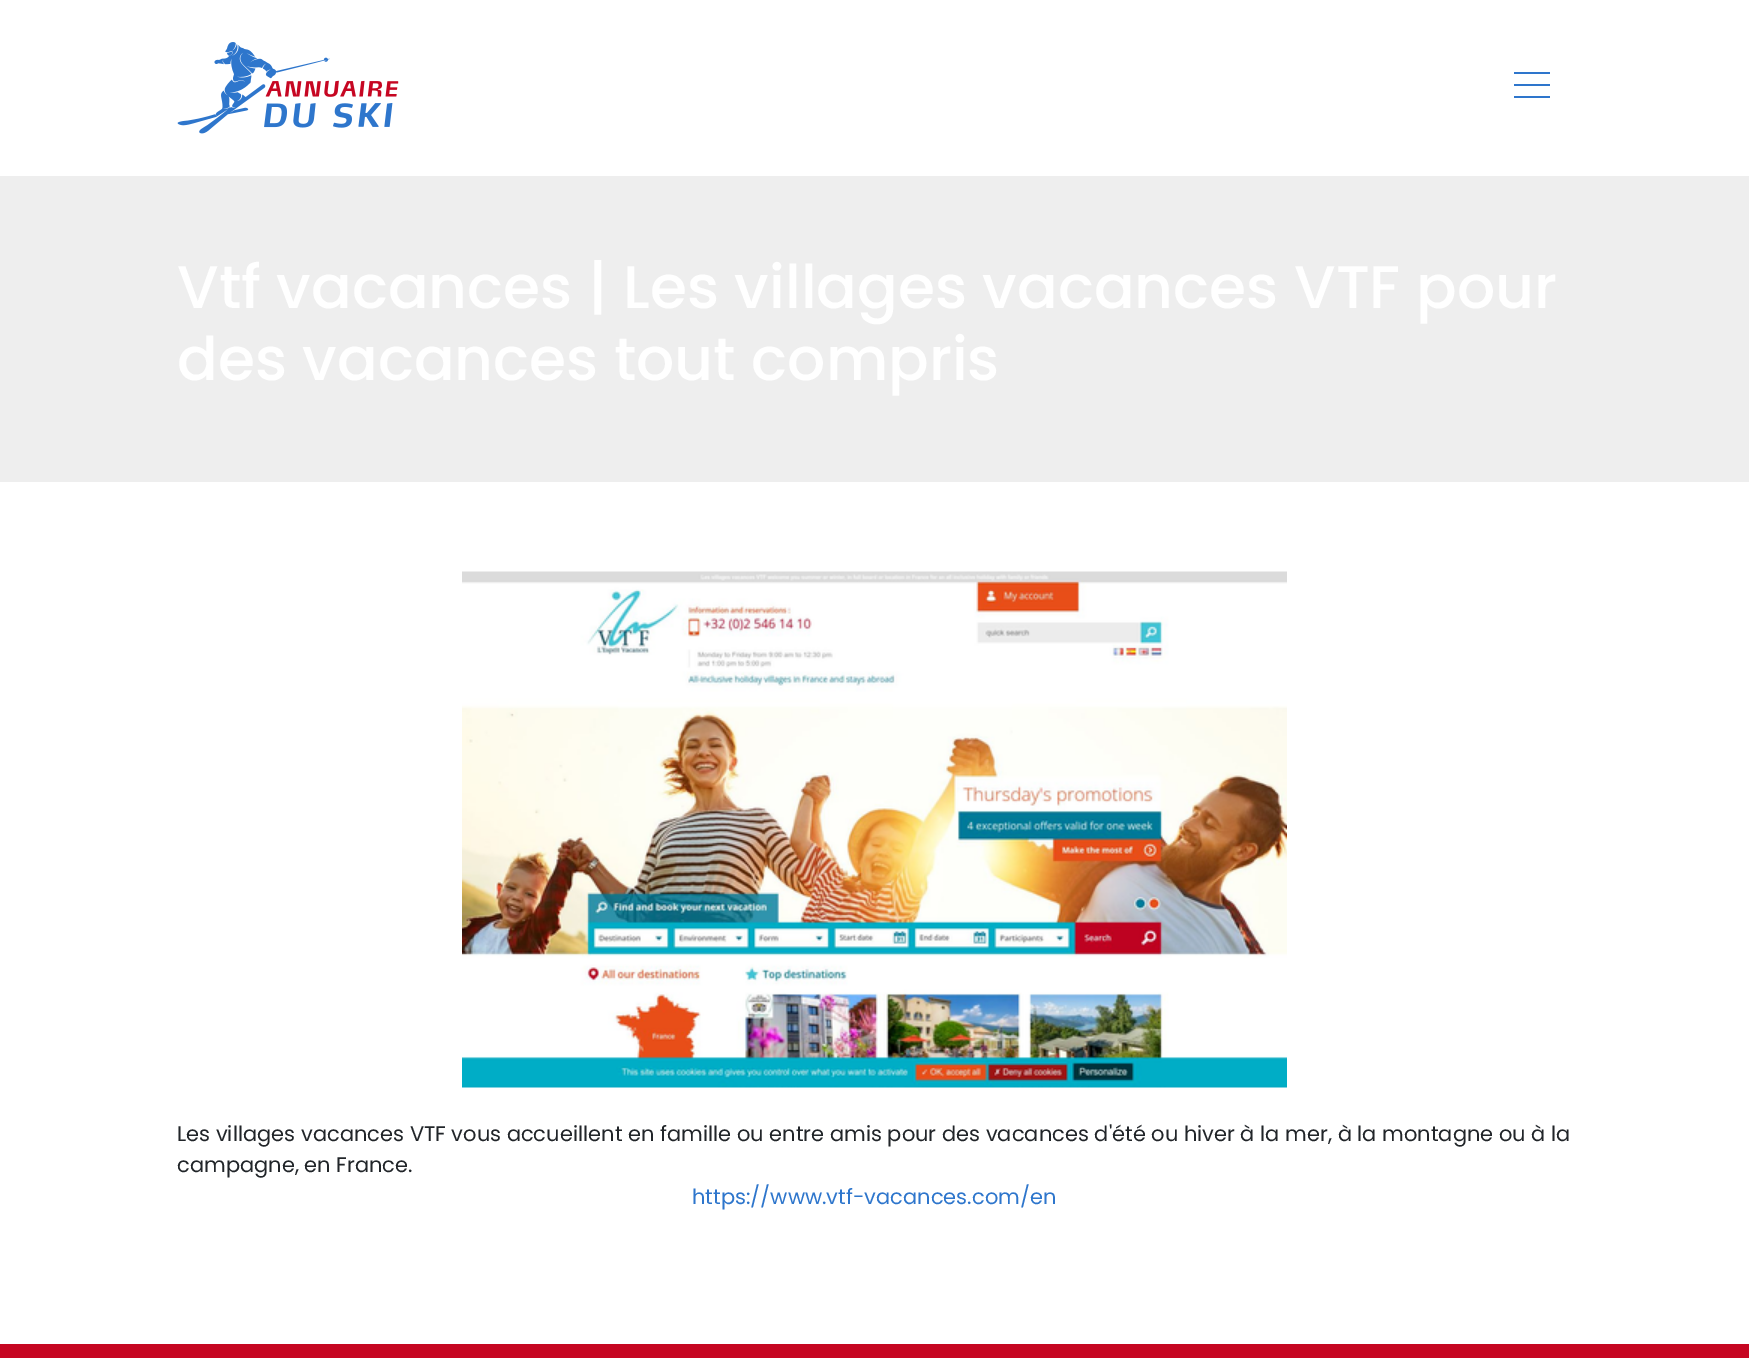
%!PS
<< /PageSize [1749 1358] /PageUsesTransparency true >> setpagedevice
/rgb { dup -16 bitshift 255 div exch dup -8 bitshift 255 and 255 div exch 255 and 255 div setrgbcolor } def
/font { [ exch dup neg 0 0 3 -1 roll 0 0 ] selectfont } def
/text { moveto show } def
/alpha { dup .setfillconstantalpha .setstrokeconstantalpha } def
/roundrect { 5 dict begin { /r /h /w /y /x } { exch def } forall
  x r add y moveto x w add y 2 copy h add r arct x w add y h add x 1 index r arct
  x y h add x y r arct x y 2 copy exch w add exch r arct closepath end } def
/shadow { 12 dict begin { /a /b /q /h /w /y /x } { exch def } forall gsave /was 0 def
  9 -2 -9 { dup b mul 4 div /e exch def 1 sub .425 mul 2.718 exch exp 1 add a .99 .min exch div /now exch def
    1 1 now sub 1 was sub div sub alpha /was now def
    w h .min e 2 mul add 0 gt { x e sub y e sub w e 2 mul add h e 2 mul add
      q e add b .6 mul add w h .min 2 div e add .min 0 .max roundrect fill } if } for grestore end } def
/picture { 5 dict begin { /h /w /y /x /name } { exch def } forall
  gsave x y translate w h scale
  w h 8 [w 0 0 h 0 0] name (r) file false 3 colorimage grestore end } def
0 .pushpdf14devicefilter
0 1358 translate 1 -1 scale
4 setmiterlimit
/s1 { /Poppins-Medium 60 font 16#FFFFFF rgb } def
/s2 { /Poppins-Regular 21 font 16#212529 rgb } def
/s3 { /Poppins-Regular 21 font 16#2E76CC rgb } def
16#FFFFFF rgb
0 0 1749 1358 rectfill
gsave
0 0 moveto 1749 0 lineto 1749 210 lineto 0 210 lineto closepath 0 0 moveto 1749 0 lineto 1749 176 lineto 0 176 lineto closepath eoclip newpath
16#000000 rgb
0 3 1749 176 0 10 0.1 shadow
grestore
(pic1.raw) 177 42 222 92 picture
16#2E76CC rgb
1514 72 36 2 rectfill
1514 84 36 2 rectfill
1514 96 36 2 rectfill
16#EEEEEE rgb
0 176 1749 306 rectfill
s1
(Vtf vacances | Les villages vacances VTF pour) 177 308 text
(des vacances tout compris) 177 380 text
(pic2.raw) 462 571 825 517 picture
s2
(Les villages vacances VTF vous accueillent en famille ou entre amis pour des vacances d'été ou hiver à la mer, à la montagne ou à la) 177 1141 text
(campagne, en France.) 177 1172 text
s3
(https://www.vtf-vacances.com/en) 692 1204 text
16#C60622 rgb
0 1344 1749 14 rectfill
.poppdf14devicefilter showpage
